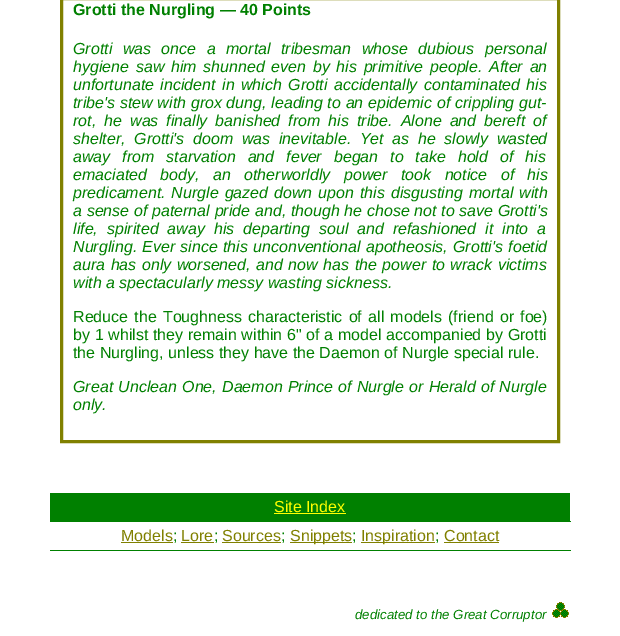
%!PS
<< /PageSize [620 636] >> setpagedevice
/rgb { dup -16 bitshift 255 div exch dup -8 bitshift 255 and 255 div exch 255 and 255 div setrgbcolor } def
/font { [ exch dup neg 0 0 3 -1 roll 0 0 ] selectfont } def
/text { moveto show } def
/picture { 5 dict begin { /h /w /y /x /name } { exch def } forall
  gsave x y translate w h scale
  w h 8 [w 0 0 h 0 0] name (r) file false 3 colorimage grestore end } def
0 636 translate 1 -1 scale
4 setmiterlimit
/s1 { /LiberationSans-Bold 16 font 16#008000 rgb } def
/s2 { /LiberationSans-Italic 16 font 16#008000 rgb } def
/s3 { /LiberationSans-Regular 16 font 16#008000 rgb } def
/s4 { /LiberationSans-Regular 16 font 16#FFFF00 rgb } def
/s5 { /LiberationSans-Regular 16 font 16#808000 rgb } def
/s6 { /LiberationSans-Italic 13.3 font 16#008000 rgb } def
16#FFFFFF rgb
0 0 620 636 rectfill
16#808000 rgb
3 setlinewidth
61.5 -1.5 497 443 rectstroke
s1
(Grotti the Nurgling — 40 Points) 73 15 text
/LiberationSans-Italic 16 font
73 54 moveto 6 0 32 (Grotti was once a mortal tribesman whose dubious personal) widthshow
73 72 moveto 2.25 0 32 (hygiene saw him shunned even by his primitive people. After an) widthshow
73 90 moveto 2 0 32 (unfortunate incident in which Grotti accidentally contaminated his) widthshow
73 108 moveto 0.25 0 32 (tribe's stew with grox dung, leading to an epidemic of crippling gut-) widthshow
73 126 moveto 3.6 0 32 (rot, he was finally banished from his tribe. Alone and bereft of) widthshow
73 144 moveto 4.25 0 32 (shelter, Grotti's doom was inevitable. Yet as he slowly wasted) widthshow
73 162 moveto 7.5 0 32 (away from starvation and fever began to take hold of his) widthshow
73 180 moveto 9 0 32 (emaciated body, an otherworldly power took notice of his) widthshow
73 198 moveto 1.5 0 32 (predicament. Nurgle gazed down upon this disgusting mortal with) widthshow
73 216 moveto 0.25 0 32 (a sense of paternal pride and, though he chose not to save Grotti's) widthshow
73 234 moveto 4.5 0 32 (life, spirited away his departing soul and refashioned it into a) widthshow
73 252 moveto 0.75 0 32 (Nurgling. Ever since this unconventional apotheosis, Grotti's foetid) widthshow
73 270 moveto 1.1 0 32 (aura has only worsened, and now has the power to wrack victims) widthshow
(with a spectacularly messy wasting sickness.) 73 288 text
/LiberationSans-Regular 16 font
73 322 moveto 1.75 0 32 (Reduce the Toughness characteristic of all models \(friend or foe\)) widthshow
73 340 moveto 0.25 0 32 (by 1 whilst they remain within 6" of a model accompanied by Grotti) widthshow
(the Nurgling, unless they have the Daemon of Nurgle special rule.) 73 358 text
/LiberationSans-Italic 16 font
73 392 moveto 0.75 0 32 (Great Unclean One, Daemon Prince of Nurgle or Herald of Nurgle) widthshow
(only.) 73 410 text
50 493 520 28 rectfill
s4
(Site Index) 274 512 text
274 513 72 1 rectfill
16#008000 rgb
50 521 521 1 rectfill
50 550 521 1 rectfill
s5
(Models) 121 541 text
121 542 52 1 rectfill
s3
(;) 173 541 text
s5
(Lore) 181 541 text
181 542 33 1 rectfill
s3
(;) 214 541 text
s5
(Sources) 222 541 text
222 542 59 1 rectfill
s3
(;) 281 541 text
16#808000 rgb
290 542 62 1 rectfill
(Snippets) 290 541 text
s3
(;) 352 541 text
16#808000 rgb
361 542 74 1 rectfill
(Inspiration) 361 541 text
s3
(;) 435 541 text
s5
(Contact) 444 541 text
444 542 55 1 rectfill
s6
(dedicated to the Great Corruptor) 355 619 text
(pic1.raw) 552 602 17 16 picture
showpage
